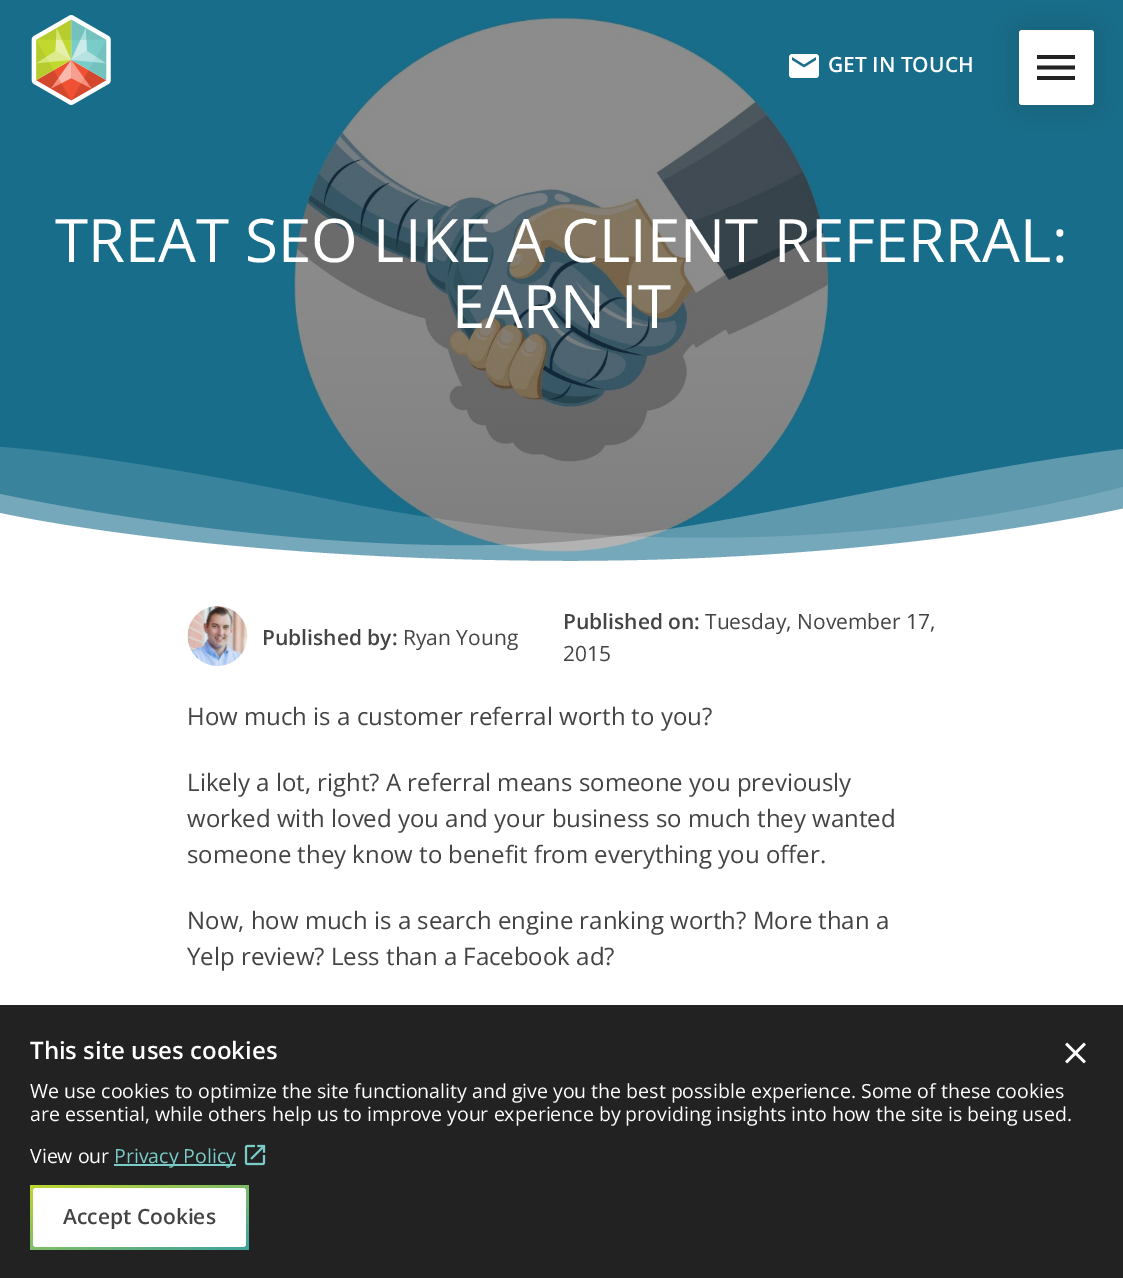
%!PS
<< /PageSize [1123 1278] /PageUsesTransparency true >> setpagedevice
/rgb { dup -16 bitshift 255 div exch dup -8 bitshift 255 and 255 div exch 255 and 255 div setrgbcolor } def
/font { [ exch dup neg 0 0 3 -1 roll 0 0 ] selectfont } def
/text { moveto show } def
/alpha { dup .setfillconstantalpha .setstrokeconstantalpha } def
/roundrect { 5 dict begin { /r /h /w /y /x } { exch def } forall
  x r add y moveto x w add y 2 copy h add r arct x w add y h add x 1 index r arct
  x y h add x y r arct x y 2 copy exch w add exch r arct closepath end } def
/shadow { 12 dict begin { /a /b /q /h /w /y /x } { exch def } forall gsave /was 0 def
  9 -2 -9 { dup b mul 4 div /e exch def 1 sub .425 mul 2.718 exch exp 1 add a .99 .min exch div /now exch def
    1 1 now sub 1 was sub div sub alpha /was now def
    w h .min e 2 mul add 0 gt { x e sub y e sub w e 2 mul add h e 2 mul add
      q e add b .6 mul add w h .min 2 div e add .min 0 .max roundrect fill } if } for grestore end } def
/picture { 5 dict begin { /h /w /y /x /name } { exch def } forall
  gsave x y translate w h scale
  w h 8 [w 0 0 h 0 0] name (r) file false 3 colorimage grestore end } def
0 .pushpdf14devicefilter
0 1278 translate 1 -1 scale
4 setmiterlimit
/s1 { /OpenSans-SemiBold 21 font 16#FFFFFF rgb } def
/s2 { /OpenSans-Regular 60 font 16#FFFFFF rgb } def
/s3 { /OpenSans-SemiBold 21 font 16#444444 rgb } def
/s4 { /OpenSans-Regular 21 font 16#444444 rgb } def
/s5 { /OpenSans-Regular 24 font 16#444444 rgb } def
/s6 { /OpenSans-SemiBold 24 font 16#FFFFFF rgb } def
/s7 { /OpenSans-Regular 19.5 font 16#FFFFFF rgb } def
/s8 { /OpenSans-Regular 19.5 font 16#7ACCC8 rgb } def
16#FFFFFF rgb
0 0 1123 1278 rectfill
(pic3.raw) 0 0 1123 561 picture
(pic1.raw) 31 15 80 90 picture
(pic2.raw) 789 54 30 24 picture
s1
(GET IN TOUCH) 828 72 text
16#000000 rgb
1011 23 90 90 11 15 0.1 shadow
16#FFFFFF rgb
1019 30 75 75 3 roundrect fill
16#222222 rgb
1037 55 moveto 1075 55 lineto 1075 59 lineto 1037 59 lineto closepath 1037 69.5 moveto 1037 65.5 lineto 1075 65.5 lineto 1075 69.5 lineto closepath 1037 80 moveto 1037 76 lineto 1075 76 lineto 1075 80 lineto closepath fill
s2
(TREAT SEO LIKE A CLIENT REFERRAL:) 55 262 text
(EARN IT) 452 328 text
gsave
0 426 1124 150 rectclip
0.15 alpha
0 447 moveto 0 447 100 452 337 501 curveto 629 561 915 542 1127 486 curveto 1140 528 lineto 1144 582 lineto 0 582 lineto closepath fill
grestore
0.3 alpha
0 494 moveto 0 494 304 561 562 542 curveto 738 528 933 471 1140 447 curveto 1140 576 lineto 0 576 lineto closepath fill
1 alpha
0 513 moveto 0 513 212 561 571 561 curveto 897 561 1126 508 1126 508 curveto 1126 576 lineto 0 576 lineto closepath fill
(pic4.raw) 187 606 61 60 picture
s3
(Published by:) 262 645 text
s4
(Ryan Young) 403 645 text
s3
(Published on:) 563 629 text
s4
(Tuesday, November 17,) 705 629 text
(2015) 563 661 text
s5
(How much is a customer referral worth to you?) 187 725 text
(Likely a lot, right? A referral means someone you previously) 187 791 text
(worked with loved you and your business so much they wanted) 187 827 text
(someone they know to benefit from everything you offer.) 187 863 text
(Now, how much is a search engine ranking worth? More than a) 187 929 text
(Yelp review? Less than a Facebook ad?) 187 965 text
16#222222 rgb
0 1005 1123 273 rectfill
s6
(This site uses cookies) 30 1059 text
s7
(We use cookies to optimize the site functionality and give you the best possible experience. Some of these cookies) 30 1098 text
(are essential, while others help us to improve your experience by providing insights into how the site is being used.) 30 1121 text
(View our) 30 1163 text
16#7ACCC8 rgb
114 1164 122 2 rectfill
(Privacy Policy) 114 1163 text
(pic5.raw) 244 1144 22 22 picture
(pic6.raw) 1065 1042 21 22 picture
gsave 30 1185 219 65 3 roundrect clip newpath
<< /ShadingType 2 /ColorSpace /DeviceRGB /Coords [122 1157 157 1276] /Extend [true true] /Function << /FunctionType 2 /Domain [0 1] /C0 [0.757 0.847 0.184] /C1 [0.243 0.635 0.616] /N 1 >> >> shfill grestore
16#FFFFFF rgb
33 1188 213 59 3 roundrect fill
s3
(Accept Cookies) 63 1224 text
.poppdf14devicefilter showpage
